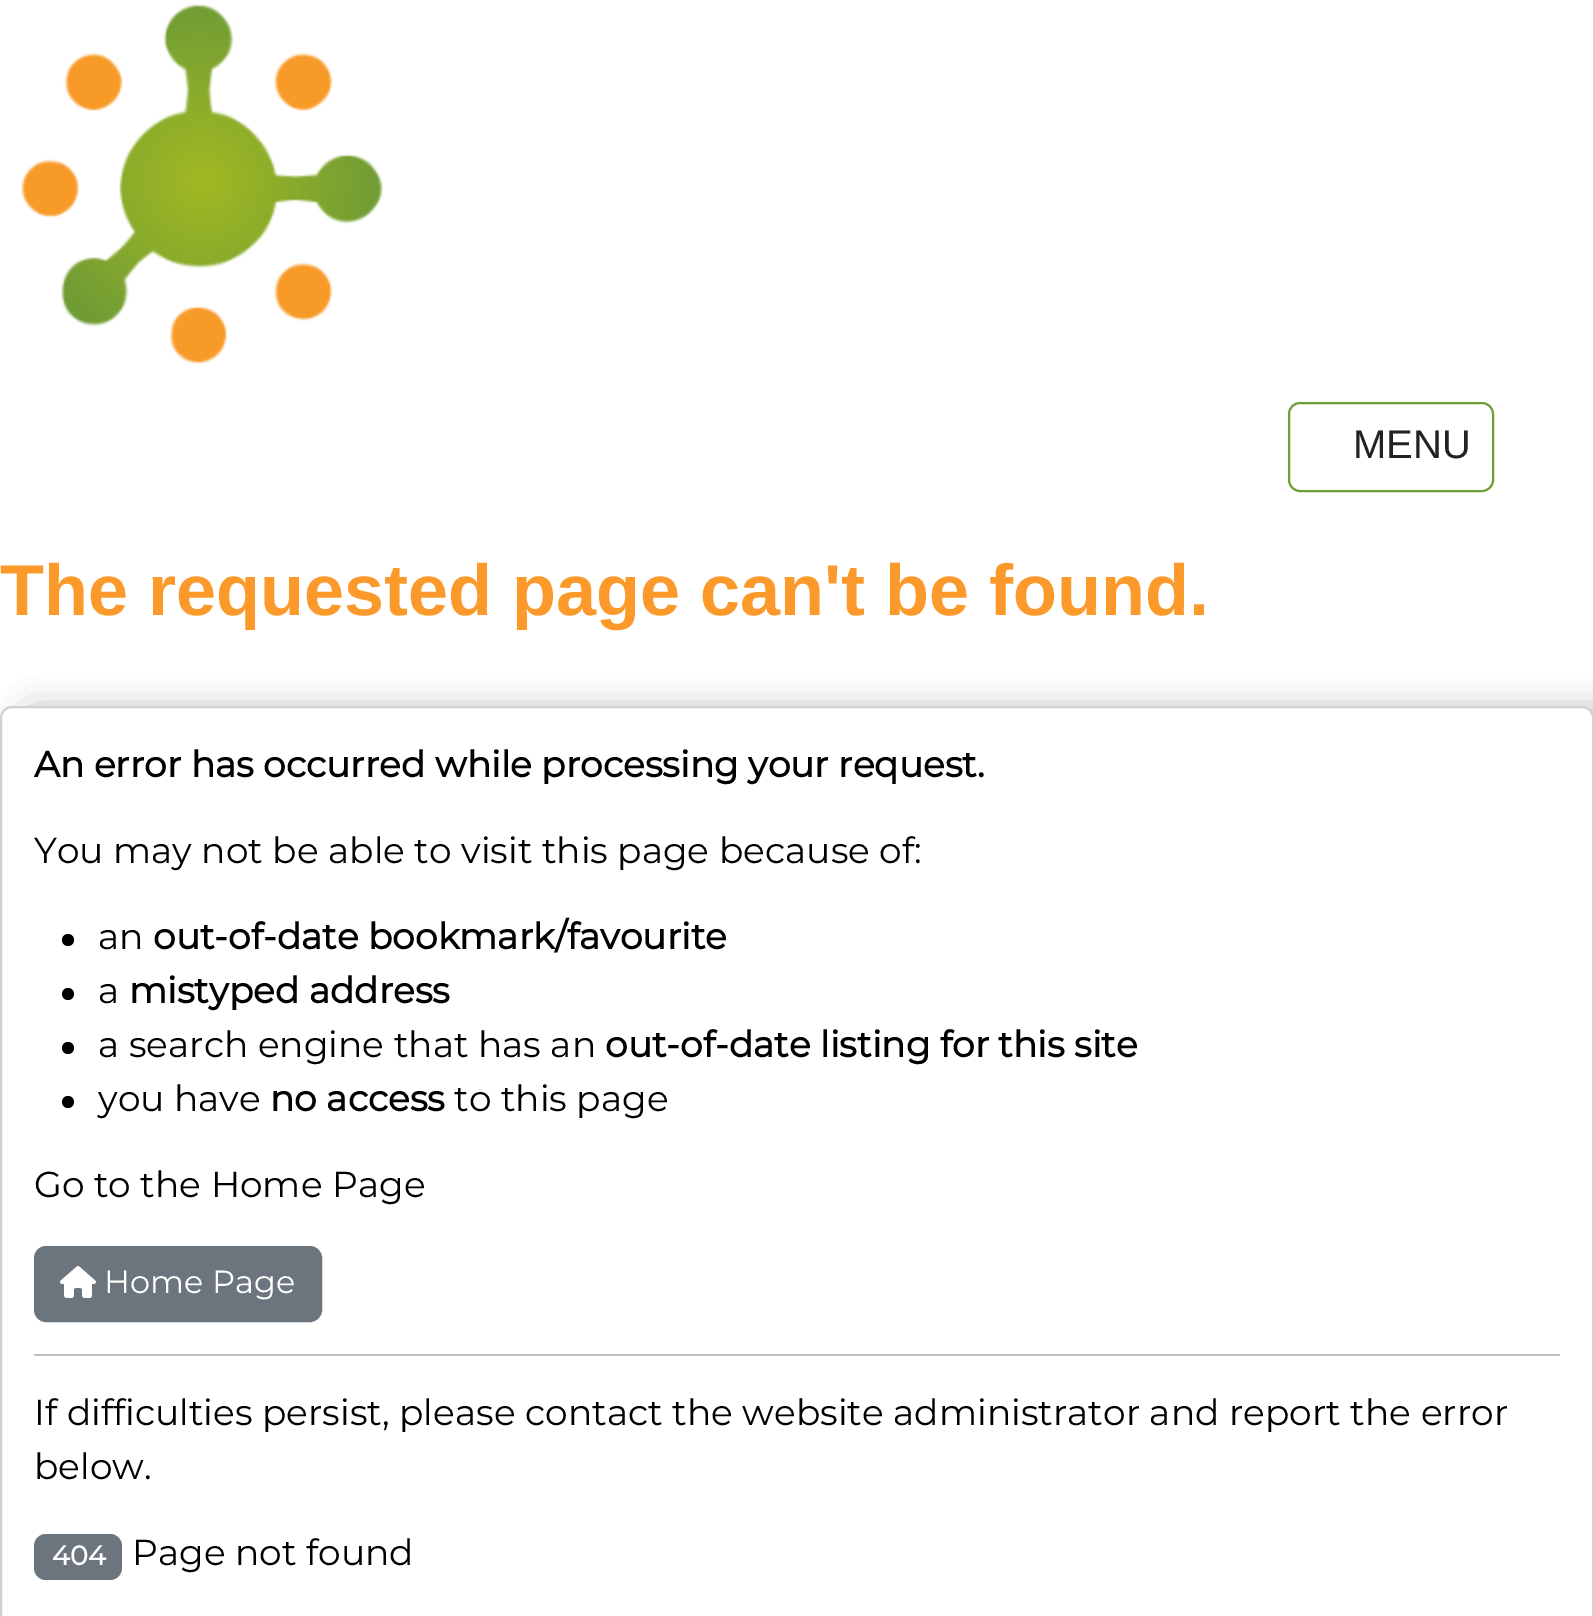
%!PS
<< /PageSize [1593 1616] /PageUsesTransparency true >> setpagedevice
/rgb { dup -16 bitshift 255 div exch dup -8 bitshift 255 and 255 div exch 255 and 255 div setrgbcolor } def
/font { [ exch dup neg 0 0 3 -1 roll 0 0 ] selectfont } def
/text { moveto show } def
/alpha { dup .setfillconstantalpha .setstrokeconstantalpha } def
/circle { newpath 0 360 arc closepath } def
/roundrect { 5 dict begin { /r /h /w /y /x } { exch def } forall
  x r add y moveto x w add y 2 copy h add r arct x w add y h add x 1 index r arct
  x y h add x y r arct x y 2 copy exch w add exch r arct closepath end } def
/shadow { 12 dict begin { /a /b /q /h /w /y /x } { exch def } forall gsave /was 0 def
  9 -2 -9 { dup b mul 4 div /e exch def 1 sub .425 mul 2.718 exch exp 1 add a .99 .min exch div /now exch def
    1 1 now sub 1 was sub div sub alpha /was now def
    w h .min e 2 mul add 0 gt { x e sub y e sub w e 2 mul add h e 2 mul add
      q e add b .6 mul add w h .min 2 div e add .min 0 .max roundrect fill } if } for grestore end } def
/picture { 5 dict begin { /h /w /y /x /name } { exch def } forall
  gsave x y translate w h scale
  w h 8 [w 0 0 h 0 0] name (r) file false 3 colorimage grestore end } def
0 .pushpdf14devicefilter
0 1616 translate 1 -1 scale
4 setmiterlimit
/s1 { /LiberationSans-Regular 40 font 16#222222 rgb } def
/s2 { /LiberationSans-Bold 72 font 16#FC992B rgb } def
/s3 { /Montserrat-Bold 36 font 16#000000 rgb } def
/s4 { /Montserrat-Thin 36 font 16#000000 rgb } def
/s5 { /Montserrat-Thin 32 font 16#FFFFFF rgb } def
/s6 { /Montserrat-Bold 27 font 16#FFFFFF rgb } def
16#FFFFFF rgb
0 0 1593 1616 rectfill
(pic1.raw) 21 3 362 362 picture
16#6F9D36 rgb
2 setlinewidth
1289 403 204 88 11 roundrect stroke
s1
(MENU) 1353 458 text
s2
(The requested page can't be found.) 0 615 text
16#000000 rgb
24 714 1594 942 12 18 0.35 shadow
16#FFFFFF rgb
0 706 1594 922 12 roundrect fill
0.18 alpha
16#000000 rgb
1 707 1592 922 11 roundrect stroke
1 alpha
s3
(An error has occurred while processing your request.) 34 777 text
s4
(You may not be able to visit this page because of:) 34 863 text
68 940 6 circle fill
(an) 98 949 text
s3
(out-of-date bookmark/favourite) 153 949 text
68 994 6 circle fill
s4
(a) 98 1003 text
s3
(mistyped address) 129 1003 text
68 1048 6 circle fill
s4
(a search engine that has an) 98 1057 text
s3
(out-of-date listing for this site) 605 1057 text
68 1102 6 circle fill
s4
(you have) 98 1111 text
s3
(no access) 270 1111 text
s4
(to this page) 454 1111 text
(Go to the Home Page) 34 1197 text
16#6C757D rgb
35 1247 286 74 11 roundrect gsave fill grestore
stroke
(pic2.raw) 60 1266 36 32 picture
s5
(Home Page) 104 1293 text
16#BFBFBF rgb
34 1354 1526 2 rectfill
s4
(If difficulties persist, please contact the website administrator and report the error) 34 1425 text
(below.) 34 1479 text
16#6C757D rgb
34 1534 88 46 12 roundrect fill
s6
(404) 52 1565 text
s4
(Page not found) 132 1565 text
.poppdf14devicefilter showpage
